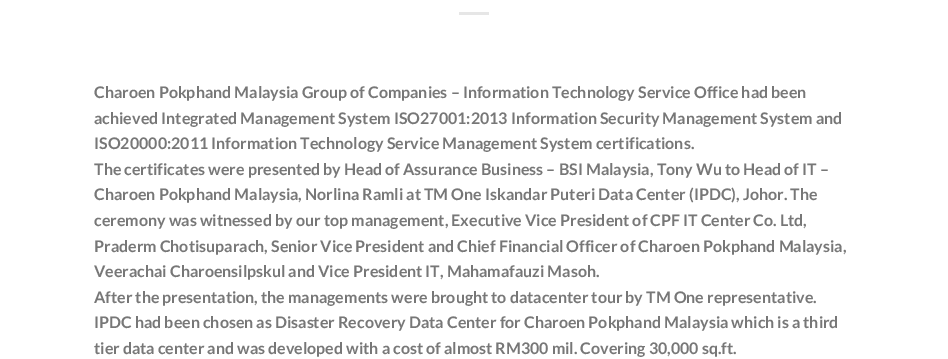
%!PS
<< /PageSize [948 359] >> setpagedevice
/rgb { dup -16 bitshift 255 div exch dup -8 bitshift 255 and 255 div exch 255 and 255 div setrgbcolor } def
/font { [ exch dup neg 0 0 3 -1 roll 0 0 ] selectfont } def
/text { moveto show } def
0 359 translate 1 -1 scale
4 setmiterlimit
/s1 { /Lato-Bold 16 font 16#777777 rgb } def
16#FFFFFF rgb
0 0 948 359 rectfill
16#E6E6E6 rgb
459 12 30 3 rectfill
s1
(Charoen Pokphand Malaysia Group of Companies – Information Technology Service Office had been) 94 98 text
(achieved Integrated Management System ISO27001:2013 Information Security Management System and) 94 124 text
(ISO20000:2011 Information Technology Service Management System certifications.) 94 149 text
(The certificates were presented by Head of Assurance Business – BSI Malaysia, Tony Wu to Head of IT –) 94 175 text
(Charoen Pokphand Malaysia, Norlina Ramli at TM One Iskandar Puteri Data Center \(IPDC\), Johor. The) 94 200 text
(ceremony was witnessed by our top management, Executive Vice President of CPF IT Center Co. Ltd,) 94 226 text
(Praderm Chotisuparach, Senior Vice President and Chief Financial Officer of Charoen Pokphand Malaysia,) 94 252 text
(Veerachai Charoensilpskul and Vice President IT, Mahamafauzi Masoh.) 94 277 text
(After the presentation, the managements were brought to datacenter tour by TM One representative.) 94 303 text
(IPDC had been chosen as Disaster Recovery Data Center for Charoen Pokphand Malaysia which is a third) 94 328 text
(tier data center and was developed with a cost of almost RM300 mil. Covering 30,000 sq.ft.) 94 354 text
showpage
